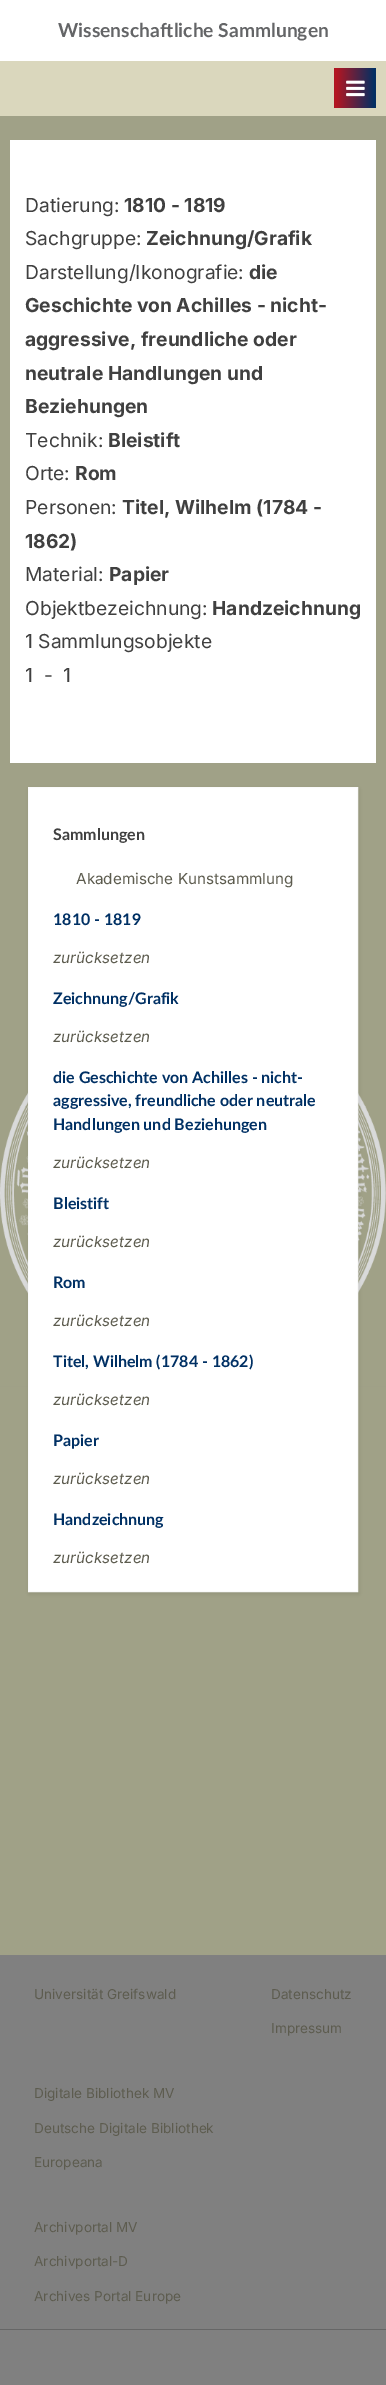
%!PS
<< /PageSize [386 2385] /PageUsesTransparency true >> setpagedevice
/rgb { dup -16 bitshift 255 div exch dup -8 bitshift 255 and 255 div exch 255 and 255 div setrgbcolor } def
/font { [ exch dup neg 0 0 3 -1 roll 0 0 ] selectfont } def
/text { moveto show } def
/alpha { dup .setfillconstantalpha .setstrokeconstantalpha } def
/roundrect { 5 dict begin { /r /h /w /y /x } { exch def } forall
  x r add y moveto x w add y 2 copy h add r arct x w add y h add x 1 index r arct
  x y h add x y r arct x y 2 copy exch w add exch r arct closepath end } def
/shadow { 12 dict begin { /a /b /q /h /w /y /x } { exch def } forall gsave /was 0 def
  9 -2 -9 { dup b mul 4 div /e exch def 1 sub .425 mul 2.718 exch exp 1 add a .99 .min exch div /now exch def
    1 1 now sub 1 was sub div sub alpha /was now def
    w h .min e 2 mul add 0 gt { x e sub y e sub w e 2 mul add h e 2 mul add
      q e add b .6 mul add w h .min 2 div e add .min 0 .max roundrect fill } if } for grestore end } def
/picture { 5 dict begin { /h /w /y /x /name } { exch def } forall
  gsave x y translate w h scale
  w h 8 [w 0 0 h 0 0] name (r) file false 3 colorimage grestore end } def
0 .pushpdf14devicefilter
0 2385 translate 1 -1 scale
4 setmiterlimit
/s1 { /Lato-Bold 19.25 font 16#646567 rgb } def
/s2 { /Inter-Regular 19.25 font 16#404040 rgb } def
/s3 { /Inter-Bold 19.25 font 16#404040 rgb } def
/s4 { /Lato-Bold 16 font 16#404040 rgb } def
/s5 { /Inter-Regular 15.25 font 16#5D5C4F rgb } def
/s6 { /Lato-Bold 16 font 16#003064 rgb } def
/s7 { /Inter-Italic 15.25 font 16#5D5C4F rgb } def
/s8 { /Inter-Regular 13.6 font 16#5D5C4F rgb } def
16#A0A187 rgb
0 0 386 2385 rectfill
(pic1.raw) 0 1000 386 387 picture
16#FFFFFF rgb
0 0 386 61 rectfill
s1
(Wissenschaftliche Sammlungen) 58 37 text
16#DAD7BD rgb
0 61 386 55 rectfill
gsave 334 68 moveto 336 68 lineto 336 108 lineto 334 108 lineto closepath clip newpath
<< /ShadingType 2 /ColorSpace /DeviceRGB /Coords [260 88 336 88] /Extend [true true] /Function << /FunctionType 3 /Domain [0 1] /Functions [<< /FunctionType 2 /Domain [0 1] /C0 [0.71 0.086 0.129] /C1 [0 0.188 0.392] /N 1 >> << /FunctionType 2 /Domain [0 1] /C0 [0 0.188 0.392] /C1 [0.71 0.086 0.129] /N 1 >>] /Bounds [0.51] /Encode [0 1 0 1] >> >> shfill grestore
gsave 336 68 moveto 376 68 lineto 376 108 lineto 336 108 lineto closepath clip newpath
<< /ShadingType 2 /ColorSpace /DeviceRGB /Coords [336 88 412 88] /Extend [true true] /Function << /FunctionType 3 /Domain [0 1] /Functions [<< /FunctionType 2 /Domain [0 1] /C0 [0.71 0.086 0.129] /C1 [0 0.188 0.392] /N 1 >> << /FunctionType 2 /Domain [0 1] /C0 [0 0.188 0.392] /C1 [0.71 0.086 0.129] /N 1 >>] /Bounds [0.51] /Encode [0 1 0 1] >> >> shfill grestore
(pic2.raw) 346 80 19 17 picture
16#FFFFFF rgb
10 140 366 623 rectfill
s2
(Datierung:) 25 212 text
s3
(1810 - 1819) 124 212 text
s2
(Sachgruppe:) 25 245 text
s3
(Zeichnung/Grafik) 146 245 text
s2
(Darstellung/Ikonografie:) 25 279 text
s3
(die) 249 279 text
(Geschichte von Achilles - nicht-) 25 312 text
(aggressive, freundliche oder) 25 346 text
(neutrale Handlungen und) 25 380 text
(Beziehungen) 25 413 text
s2
(Technik:) 25 447 text
s3
(Bleistift) 108 447 text
s2
(Orte:) 25 480 text
s3
(Rom) 75 480 text
s2
(Personen:) 25 514 text
s3
(Titel, Wilhelm \(1784 -) 122 514 text
(1862\)) 25 548 text
s2
(Material:) 25 581 text
s3
(Papier) 109 581 text
s2
(Objektbezeichnung:) 25 615 text
s3
(Handzeichnung) 212 615 text
s2
(1 Sammlungsobjekte) 25 648 text
(1  -  1) 25 682 text
16#000000 rgb
29 789 330 805 0 1.5 0.07 shadow
16#FFFFFF rgb
28.5 787.5 moveto 357.5 787.5 lineto 357.5 1591.5 lineto 28.5 1591.5 lineto closepath gsave fill grestore
16#FAFAFA rgb
stroke
s4
(Sammlungen) 53 840 text
s5
(Akademische Kunstsammlung) 76 884 text
s6
(1810 - 1819) 53 925 text
s7
(zurücksetzen) 53 963 text
s6
(Zeichnung/Grafik) 53 1004 text
s7
(zurücksetzen) 53 1042 text
s6
(die Geschichte von Achilles - nicht-) 53 1083 text
(aggressive, freundliche oder neutrale) 53 1106 text
(Handlungen und Beziehungen) 53 1130 text
s7
(zurücksetzen) 53 1168 text
s6
(Bleistift) 53 1209 text
s7
(zurücksetzen) 53 1247 text
s6
(Rom) 53 1288 text
s7
(zurücksetzen) 53 1326 text
s6
(Titel, Wilhelm \(1784 - 1862\)) 53 1367 text
s7
(zurücksetzen) 53 1405 text
s6
(Papier) 53 1446 text
s7
(zurücksetzen) 53 1484 text
s6
(Handzeichnung) 53 1525 text
s7
(zurücksetzen) 53 1563 text
16#808080 rgb
0 1955 386 430 rectfill
16#666666 rgb
0 2329 386 1 rectfill
s8
(Universität Greifswald) 34 1999 text
(Datenschutz) 271 1999 text
(Impressum) 271 2033 text
(Digitale Bibliothek MV) 34 2098 text
(Deutsche Digitale Bibliothek) 34 2133 text
(Europeana) 34 2167 text
(Archivportal MV) 34 2232 text
(Archivportal-D) 34 2266 text
(Archives Portal Europe) 34 2301 text
.poppdf14devicefilter showpage
